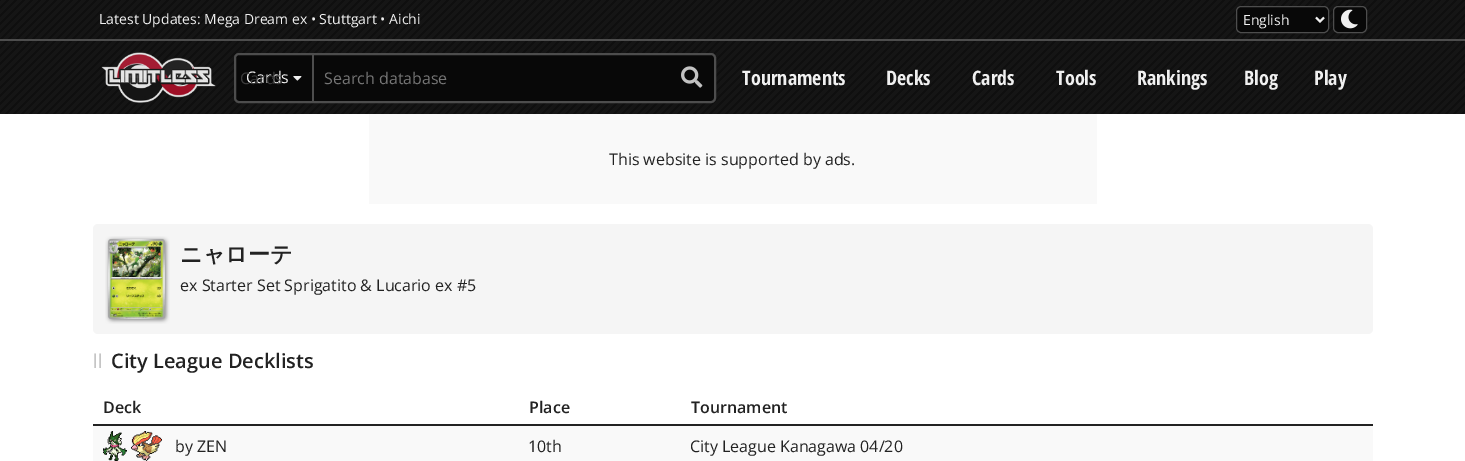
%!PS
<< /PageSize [1465 461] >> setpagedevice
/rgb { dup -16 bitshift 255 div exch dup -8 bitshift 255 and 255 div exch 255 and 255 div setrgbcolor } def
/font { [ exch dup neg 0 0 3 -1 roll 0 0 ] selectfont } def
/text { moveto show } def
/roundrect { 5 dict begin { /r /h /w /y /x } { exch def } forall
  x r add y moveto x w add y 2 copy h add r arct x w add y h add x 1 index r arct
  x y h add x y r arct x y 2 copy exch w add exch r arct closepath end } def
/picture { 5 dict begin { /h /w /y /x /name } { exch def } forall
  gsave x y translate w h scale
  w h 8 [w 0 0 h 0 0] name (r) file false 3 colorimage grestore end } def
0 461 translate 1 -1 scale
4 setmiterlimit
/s1 { /OpenSans-Regular 14 font 16#F0F0F0 rgb } def
/s2 { /OpenSans-Regular 16 font 16#F0F0F0 rgb } def
/s3 { /OpenSans-Regular 16 font 16#3B3B3B rgb } def
/s4 { /OpenSans-Regular 16 font 16#757575 rgb } def
/s5 { /OpenSansCondensed-Bold 20 font 16#F0F0F0 rgb } def
/s6 { /OpenSans-Regular 16 font 16#222222 rgb } def
/s7 { /WenQuanYiZenHei-Bold 22 font 16#222222 rgb } def
/s8 { /OpenSans-SemiBold 20 font 16#222222 rgb } def
/s9 { /OpenSans-SemiBold 16 font 16#222222 rgb } def
16#FFFFFF rgb
0 0 1465 461 rectfill
(pic1.raw) 0 0 1465 114 picture
16#4D4D4D rgb
0 39 1465 2 rectfill
s1
(Latest Updates: Mega Dream ex • Stuttgart • Aichi) 99 24 text
16#080808 rgb
1236.5 6.5 92 26 4.5 roundrect gsave fill grestore
16#4D4D4D rgb
stroke
16#F0F0F0 rgb
2 setlinewidth
1316 17.5 moveto 1320 21.5 lineto 1324 17.5 lineto stroke
(English) 1243 25 text
16#080808 rgb
1333.5 6.5 33 26 4.5 roundrect gsave fill grestore
16#4D4D4D rgb
1 setlinewidth
stroke
(pic2.raw) 1341 9 17 20 picture
(pic3.raw) 101 52 115 51 picture
16#080808 rgb
235 54 480 48 4 roundrect gsave fill grestore
16#4D4D4D rgb
2 setlinewidth
stroke
312 55 2 46 rectfill
s2
(Cards) 246 83 text
(pic4.raw) 293 76 9 5 picture
(pic5.raw) 681 66 22 22 picture
s3
(Cards) 240 84 text
s4
(Search database) 324 84 text
s5
(Tournaments) 742 85 text
(Decks) 886 85 text
(Cards) 972 85 text
(Tools) 1056 85 text
(Rankings) 1137 85 text
(Blog) 1244 85 text
(Play) 1314 85 text
16#F9F9F9 rgb
369 114 728 90 rectfill
s6
(This website is supported by ads.) 609 165 text
16#F5F5F5 rgb
93 224 1280 110 5 roundrect fill
(pic6.raw) 105 236 65 88 picture
s7
(ニャローテ) 180 262 text
s6
(ex Starter Set Sprigatito & Lucario ex #5) 180 291 text
/LiberationSans-Regular 20 font
16#C5C5C5 rgb
93 368 moveto 1 0 (ll) ashow
s8
(City League Decklists) 111 368 text
93 424 1280 2 rectfill
s9
(Deck) 103 413 text
(Place) 529 413 text
(Tournament) 691 413 text
16#F9F9F9 rgb
93 426 1280 35 rectfill
(pic7.raw) 103 431 24 30 picture
(pic8.raw) 131 431 31 30 picture
s6
(by ZEN) 175 452 text
(10th) 528 452 text
(City League Kanagawa 04/20) 690 452 text
showpage
